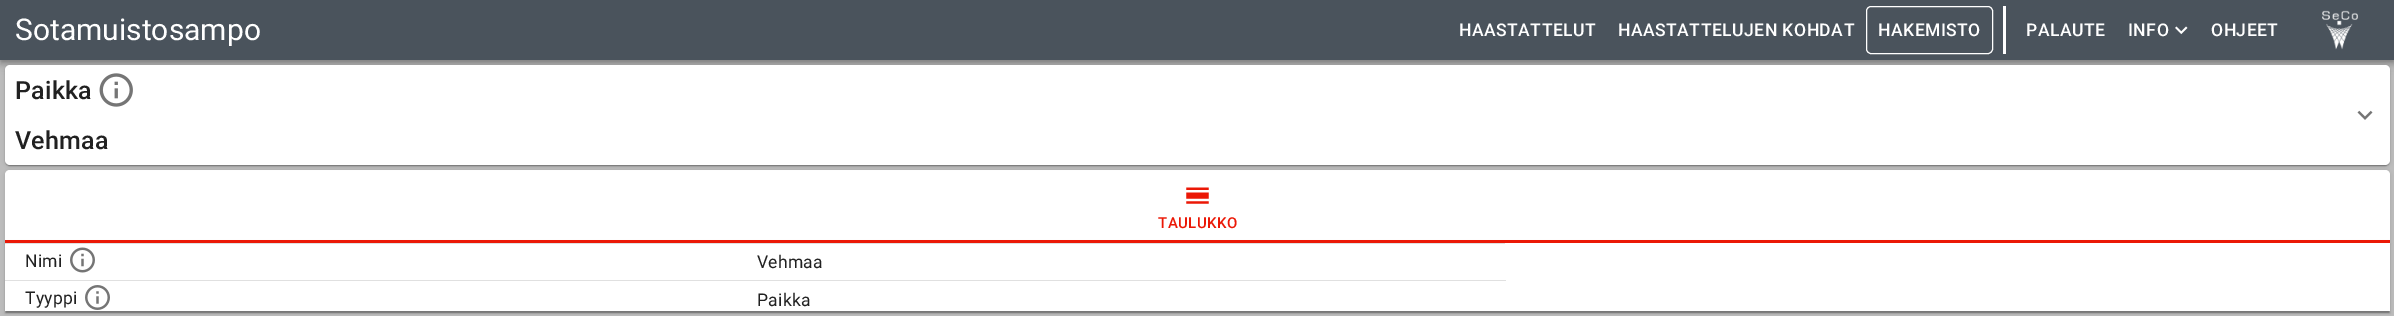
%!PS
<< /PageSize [2394 316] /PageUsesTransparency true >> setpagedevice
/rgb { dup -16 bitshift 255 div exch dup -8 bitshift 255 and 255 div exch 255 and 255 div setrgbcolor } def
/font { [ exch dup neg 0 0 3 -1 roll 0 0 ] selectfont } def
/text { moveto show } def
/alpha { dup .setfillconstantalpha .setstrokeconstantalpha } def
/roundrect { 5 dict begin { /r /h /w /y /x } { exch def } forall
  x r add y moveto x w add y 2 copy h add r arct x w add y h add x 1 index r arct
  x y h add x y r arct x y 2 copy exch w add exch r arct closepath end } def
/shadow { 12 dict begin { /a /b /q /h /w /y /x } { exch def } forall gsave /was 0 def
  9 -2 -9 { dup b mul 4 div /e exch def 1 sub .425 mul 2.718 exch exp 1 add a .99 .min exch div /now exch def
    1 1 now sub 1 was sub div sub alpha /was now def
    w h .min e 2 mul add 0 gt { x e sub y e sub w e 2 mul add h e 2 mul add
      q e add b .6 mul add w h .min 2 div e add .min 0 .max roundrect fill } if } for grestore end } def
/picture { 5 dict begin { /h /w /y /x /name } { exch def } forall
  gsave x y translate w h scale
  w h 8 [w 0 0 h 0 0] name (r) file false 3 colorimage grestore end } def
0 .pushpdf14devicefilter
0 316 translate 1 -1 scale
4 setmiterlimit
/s1 { /Roboto-Regular 30 font 16#FFFFFF rgb } def
16#BDBDBD rgb
0 0 2394 316 rectfill
16#000000 rgb
0 1 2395 60 0 6 0.12 shadow
0 5 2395 60 0 3 0.14 shadow
1 4 2393 57 0 2.5 0.2 shadow
16#4A535C rgb
0 0 2394 60 rectfill
s1
(Sotamuistosampo) 15 40 text
/Roboto-Medium 17.5 font
1459 36 moveto 0.5 0 (HAASTATTELUT) ashow
1618 36 moveto 0.5 0 (HAASTATTELUJEN KOHDAT) ashow
1866.5 6.5 126 47 4.5 roundrect stroke
1878 36 moveto 0.5 0 (HAKEMISTO) ashow
2003 6 3 48 rectfill
2026 36 moveto 0.5 0 (PALAUTE) ashow
2128 36 moveto 0.5 0 (INFO) ashow
(pic1.raw) 2175 26 13 9 picture
2211 36 moveto 0.5 0 (OHJEET) ashow
(pic2.raw) 2322 10 36 40 picture
16#000000 rgb
5 171 2385 73 5 2 0.12 shadow
16#FFFFFF rgb
10 170 moveto 2385 170 lineto 2388 170 2390 172 2390 175 curveto 2390 243 lineto 5 243 lineto 5 175 lineto 5 172 7 170 10 170 curveto closepath fill
16#000000 rgb
5 66 2385 100 5 2 0.12 shadow
5 66 2385 100 5 0.5 0.14 shadow
6 69 2383 97 4 0.5 0.2 shadow
16#FFFFFF rgb
5 65 2385 100 5 roundrect fill
/Roboto-Medium 25 font
16#212121 rgb
15 99 moveto 0.25 0 (Paikka) ashow
(pic3.raw) 99 73 34 34 picture
15 149 moveto 0.25 0 (Vehmaa) ashow
(pic4.raw) 2357 110 16 10 picture
(pic5.raw) 1186 187 23 17 picture
/Roboto-Medium 15 font
16#EB1806 rgb
1158 228 moveto 0.5 0 (TAULUKKO) ashow
16#000000 rgb
5 244 2385 69 0 2 0.12 shadow
5 244 2385 69 0 0.5 0.14 shadow
16#EB1806 rgb
5 240 2385 3 rectfill
16#000000 rgb
6 246 2383 67 0 0.5 0.2 shadow
16#FFFFFF rgb
5 243 2385 68 rectfill
16#E0E0E0 rgb
5 243 1500 1 rectfill
/Roboto-Regular 17.5 font
16#212121 rgb
25 267 moveto 0.25 0 (Nimi) ashow
(pic6.raw) 70 247 25 26 picture
16#E0E0E0 rgb
5 280 1501 1 rectfill
16#212121 rgb
757 268 moveto 0.25 0 (Vehmaa) ashow
25 304 moveto 0.25 0 (Tyyppi) ashow
(pic7.raw) 85 285 25 25 picture
757 306 moveto 0.25 0 (Paikka) ashow
.poppdf14devicefilter showpage
